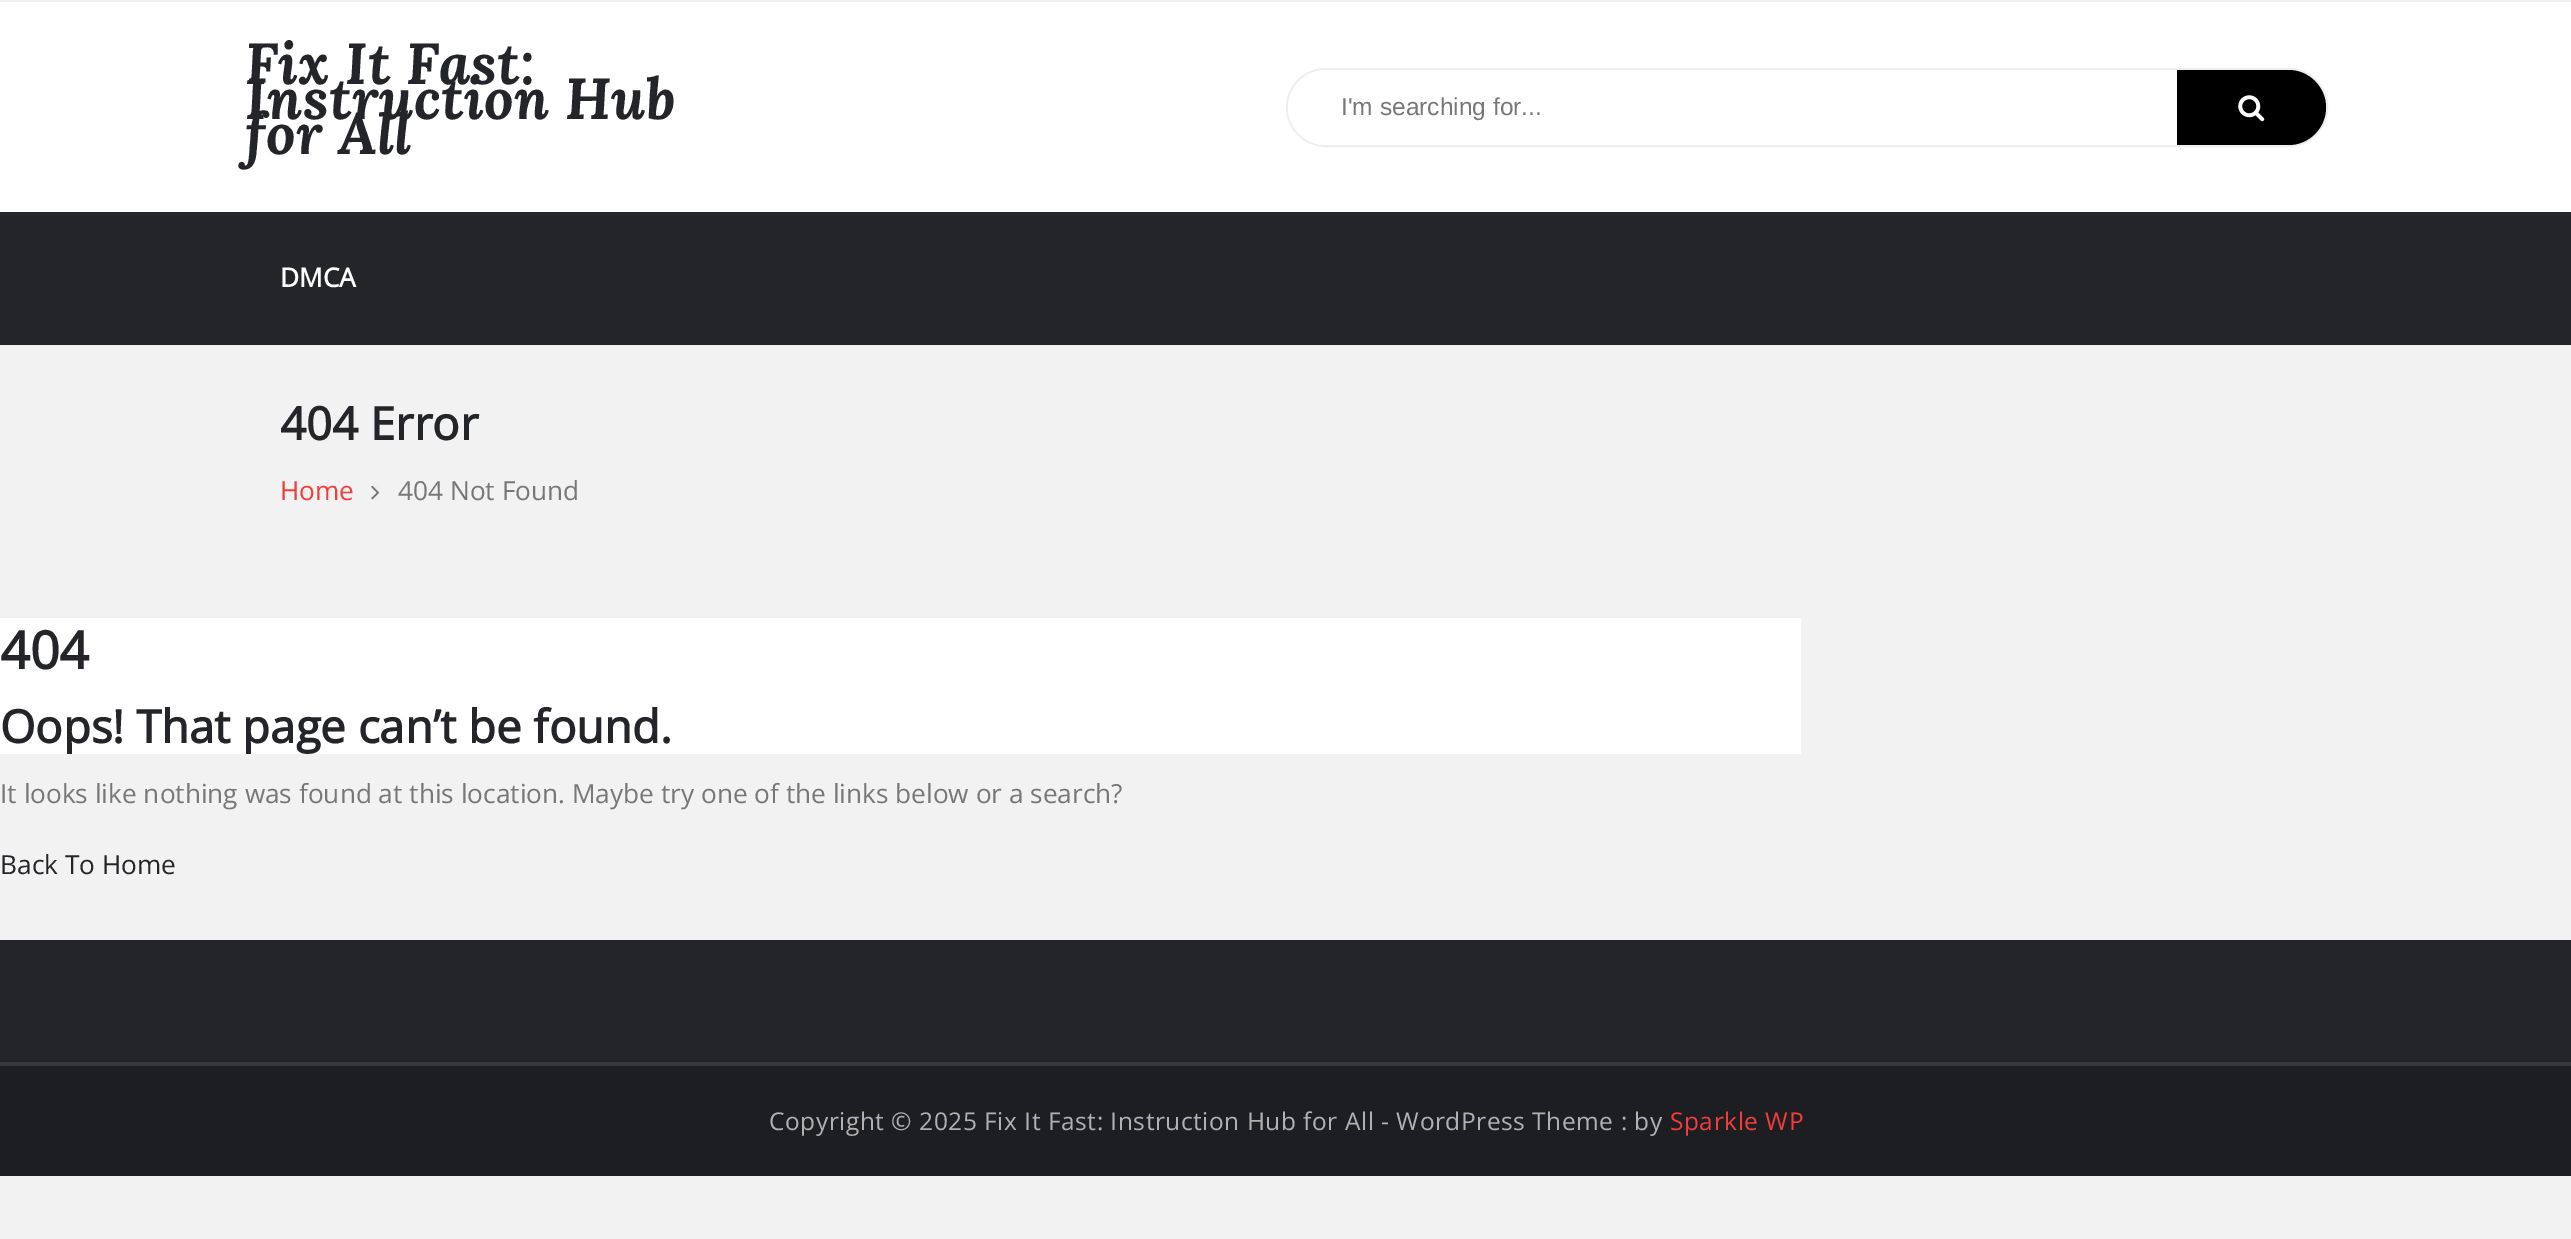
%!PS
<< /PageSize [2571 1239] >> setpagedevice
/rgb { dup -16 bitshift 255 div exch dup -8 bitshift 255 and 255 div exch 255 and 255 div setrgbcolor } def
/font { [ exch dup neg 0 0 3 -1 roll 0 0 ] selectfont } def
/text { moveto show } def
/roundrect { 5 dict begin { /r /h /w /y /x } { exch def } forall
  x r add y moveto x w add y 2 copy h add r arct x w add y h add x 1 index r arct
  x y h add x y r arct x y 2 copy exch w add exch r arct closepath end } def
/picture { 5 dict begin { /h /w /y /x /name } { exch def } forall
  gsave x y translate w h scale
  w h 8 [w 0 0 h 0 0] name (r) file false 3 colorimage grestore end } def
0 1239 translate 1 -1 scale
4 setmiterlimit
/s1 { /LiberationSans-Regular 24.5 font 16#777777 rgb } def
/s2 { /OpenSans-Bold 26.25 font 16#FFFFFF rgb } def
/s3 { /OpenSans-Bold 45.5 font 16#232529 rgb } def
/s4 { /OpenSans-Regular 26.25 font 16#F33C3C rgb } def
/s5 { /OpenSans-Regular 26.25 font 16#777777 rgb } def
/s6 { /OpenSans-Bold 52 font 16#232529 rgb } def
/s7 { /OpenSans-Regular 26.25 font 16#232529 rgb } def
16#F2F2F2 rgb
0 0 2571 1239 rectfill
16#FFFFFF rgb
0 2 2571 210 rectfill
/Lora-BoldItalic 57.75 font
16#232529 rgb
245 84 moveto 0.25 0 (Fix It Fast:) ashow
245 119 moveto 0.25 0 (Instruction Hub) ashow
245 154 moveto 0.25 0 (for All) ashow
16#F0EDED rgb
2 setlinewidth
1287 69 1040 77 38.5 roundrect stroke
16#FFFFFF rgb
1325.5 70 moveto 2177 70 lineto 2177 145 lineto 1325.5 145 lineto 1305 145 1288 128 1288 107.5 curveto 1288 87 1305 70 1325.5 70 curveto closepath fill
s1
(I'm searching for...) 1341 115 text
16#000000 rgb
2177 70 moveto 2288.5 70 lineto 2309 70 2326 87 2326 107.5 curveto 2326 128 2309 145 2288.5 145 curveto 2177 145 lineto closepath fill
(pic1.raw) 2238 95 27 27 picture
16#232529 rgb
0 212 2571 133 rectfill
s2
(DMCA) 280 287 text
s3
(404 Error) 280 440 text
s4
(Home) 280 500 text
(pic2.raw) 371 485 9 15 picture
s5
(404 Not Found) 398 500 text
16#FFFFFF rgb
0 618 1801 136 rectfill
s6
(404) 0 669 text
s3
(Oops! That page can’t be found.) 0 743 text
s5
(It looks like nothing was found at this location. Maybe try one of the links below or a search?) 0 803 text
s7
(Back To Home) 0 874 text
0 940 2571 122 rectfill
16#36383B rgb
0 1062 2571 4 rectfill
16#1D1E21 rgb
0 1066 2571 110 rectfill
/OpenSans-Regular 24.5 font
16#B3B0B0 rgb
769 1130 moveto 0.53 0 (Copyright © 2025 Fix It Fast: Instruction Hub for All - WordPress Theme : by) ashow
16#F33C3C rgb
1670 1130 moveto 0.53 0 (Sparkle WP) ashow
showpage
